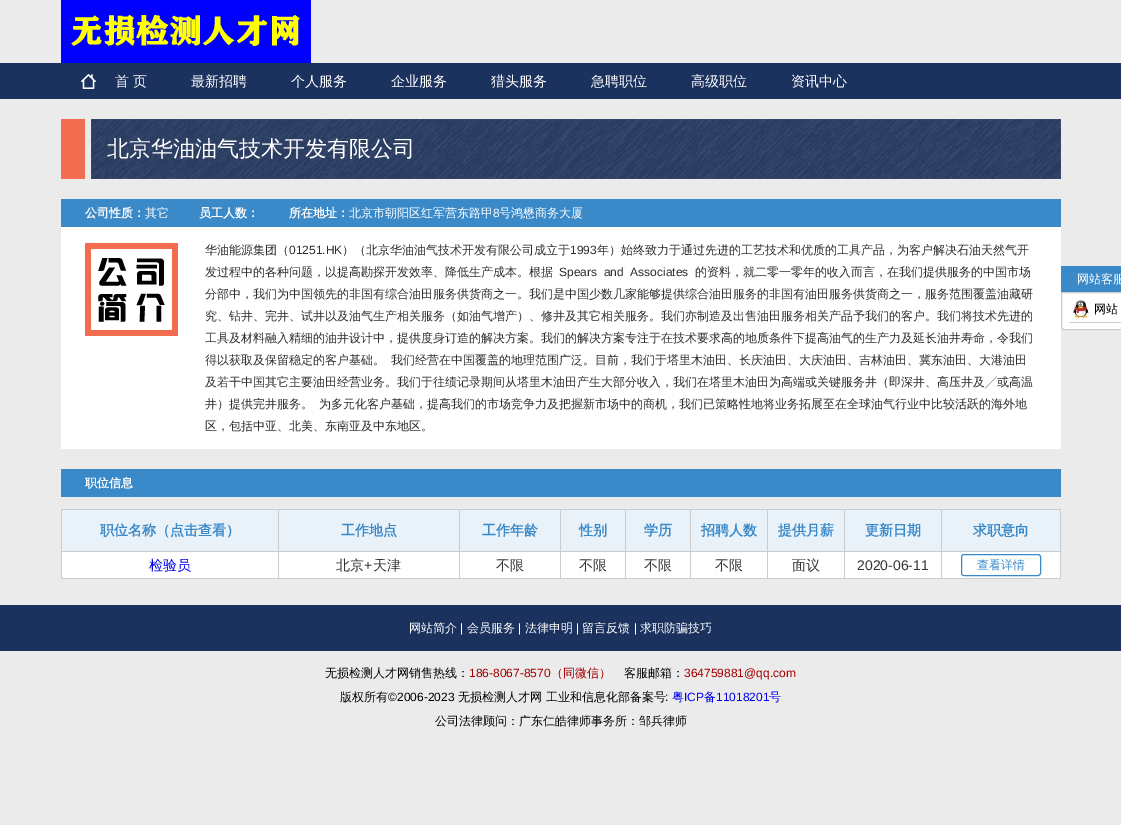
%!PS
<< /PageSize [1121 825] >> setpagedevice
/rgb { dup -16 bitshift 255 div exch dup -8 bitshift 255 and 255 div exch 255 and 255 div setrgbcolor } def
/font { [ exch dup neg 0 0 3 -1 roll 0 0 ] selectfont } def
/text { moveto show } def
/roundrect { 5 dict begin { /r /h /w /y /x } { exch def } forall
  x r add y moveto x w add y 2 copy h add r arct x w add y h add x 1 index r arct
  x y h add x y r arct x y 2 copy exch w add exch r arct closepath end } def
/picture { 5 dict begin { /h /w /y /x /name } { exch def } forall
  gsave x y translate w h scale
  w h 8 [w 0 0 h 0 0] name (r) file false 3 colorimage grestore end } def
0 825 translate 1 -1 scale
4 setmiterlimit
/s1 { /WenQuanYiZenHei-Medium 14 font 16#FFFFFF rgb } def
/s2 { /WenQuanYiZenHei-Medium 22 font 16#FFFFFF rgb } def
/s3 { /WenQuanYiZenHei-Bold 12 font 16#FFFFFF rgb } def
/s4 { /WenQuanYiZenHei-Medium 12 font 16#FFFFFF rgb } def
/s5 { /LiberationSans-Regular 12 font 16#FFFFFF rgb } def
/s6 { /WenQuanYiZenHei-Medium 12 font 16#2D2D2D rgb } def
/s7 { /LiberationSans-Regular 12 font 16#2D2D2D rgb } def
/s8 { /WenQuanYiZenHei-Medium 12 font 16#000000 rgb } def
/s9 { /WenQuanYiZenHei-Bold 14 font 16#3A89C9 rgb } def
/s10 { /WenQuanYiZenHei-Medium 14 font 16#0000EE rgb } def
/s11 { /WenQuanYiZenHei-Medium 14 font 16#333333 rgb } def
/s12 { /LiberationSans-Regular 14 font 16#333333 rgb } def
/s13 { /WenQuanYiZenHei-Medium 12 font 16#3A89C9 rgb } def
/s14 { /LiberationSans-Regular 12 font 16#A40000 rgb } def
/s15 { /WenQuanYiZenHei-Medium 12 font 16#A40000 rgb } def
/s16 { /LiberationSans-Regular 12 font 16#000000 rgb } def
/s17 { /WenQuanYiZenHei-Medium 12 font 16#0000EE rgb } def
/s18 { /LiberationSans-Regular 12 font 16#0000EE rgb } def
16#EBEBEB rgb
0 0 1121 825 rectfill
(pic1.raw) 61 0 250 63 picture
16#1B325F rgb
0 63 1121 36 rectfill
(pic2.raw) 81 74 15 15 picture
s1
(首 页) 115 86 text
(最新招聘) 191 86 text
(个人服务) 291 86 text
(企业服务) 391 86 text
(猎头服务) 491 86 text
(急聘职位) 591 86 text
(高级职位) 691 86 text
(资讯中心) 791 86 text
16#F26C4F rgb
61 119 24 60 rectfill
(pic3.raw) 91 119 970 60 picture
s2
(北京华油油气技术开发有限公司) 107 156 text
16#3A89C9 rgb
61 199 1000 28 rectfill
s3
(公司性质：) 85 217 text
s4
(其它) 145 217 text
s3
(员工人数：) 199 217 text
(所在地址：) 289 217 text
s4
(北京市朝阳区红军营东路甲) 349 217 text
s5
(8) 493 217 text
s4
(号鸿懋商务大厦) 499 217 text
61 227 1000 222 rectfill
(pic4.raw) 85 243 93 93 picture
s6
(华油能源集团（) 205 254 text
s7
(01251.HK) 289 254 text
s6
(）（北京华油油气技术开发有限公司成立于) 342 254 text
s7
(1993) 570 254 text
s6
(年）始终致力于通过先进的工艺技术和优质的工具产品，为客户解决石油天然气开) 597 254 text
(发过程中的各种问题，以提高勘探开发效率、降低生产成本。根据) 205 276 text
s7
(Spears  and  Associates) 559 276 text
s6
(的资料，就二零一零年的收入而言，在我们提供服务的中国市场) 695 276 text
(分部中，我们为中国领先的非国有综合油田服务供货商之一。我们是中国少数几家能够提供综合油田服务的非国有油田服务供货商之一，服务范围覆盖油藏研) 205 298 text
(究、钻井、完井、试井以及油气生产相关服务（如油气增产）、修井及其它相关服务。我们亦制造及出售油田服务相关产品予我们的客户。我们将技术先进的) 205 320 text
(工具及材料融入精细的油井设计中，提供度身订造的解决方案。我们的解决方案专注于在技术要求高的地质条件下提高油气的生产力及延长油井寿命，令我们) 205 342 text
(得以获取及保留稳定的客户基础。) 205 364 text
(我们经营在中国覆盖的地理范围广泛。目前，我们于塔里木油田、长庆油田、大庆油田、吉林油田、冀东油田、大港油田) 391 364 text
(及若干中国其它主要油田经营业务。我们于往绩记录期间从塔里木油田产生大部分收入，我们在塔里木油田为高端或关键服务井（即深井、高压井及╱或高温) 205 386 text
(井）提供完井服务。) 205 408 text
(为多元化客户基础，提高我们的市场竞争力及把握新市场中的商机，我们已策略性地将业务拓展至在全球油气行业中比较活跃的海外地) 319 408 text
(区，包括中亚、北美、东南亚及中东地区。) 205 430 text
16#3A89C9 rgb
1061 266 60 26 rectfill
s4
(网站客服) 1077 283 text
1061.5 292.5 moveto 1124.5 292.5 lineto 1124.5 327 lineto 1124.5 328.5 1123.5 329.5 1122 329.5 curveto 1064 329.5 lineto 1062.5 329.5 1061.5 328.5 1061.5 327 curveto closepath gsave fill grestore
16#CCCCCC rgb
stroke
(pic5.raw) 1073 300 16 18 picture
16#CFCECE rgb
1069 322 52 1 rectfill
s8
(网站) 1094 313 text
16#3A89C9 rgb
61 469 1000 28 rectfill
s3
(职位信息) 85 487 text
16#E9F2F9 rgb
62 510 998 41 rectfill
16#CCCCCC rgb
941 509 120 1 rectfill
941 551 120 1 rectfill
16#FFFFFF rgb
62 552 998 26 rectfill
16#CCCCCC rgb
1060 551 1 28 rectfill
941 578 120 1 rectfill
941 551 1 28 rectfill
844 551 98 1 rectfill
941 509 1 43 rectfill
844 509 98 1 rectfill
844 578 98 1 rectfill
844 551 1 28 rectfill
767 551 78 1 rectfill
844 509 1 43 rectfill
767 509 78 1 rectfill
767 578 78 1 rectfill
767 551 1 28 rectfill
690 551 78 1 rectfill
767 509 1 43 rectfill
690 509 78 1 rectfill
690 578 78 1 rectfill
690 551 1 28 rectfill
625 551 66 1 rectfill
690 509 1 43 rectfill
625 509 66 1 rectfill
625 578 66 1 rectfill
625 551 1 28 rectfill
560 551 66 1 rectfill
625 509 1 43 rectfill
560 509 66 1 rectfill
560 578 66 1 rectfill
560 551 1 28 rectfill
459 551 102 1 rectfill
560 509 1 43 rectfill
459 509 102 1 rectfill
459 578 102 1 rectfill
459 551 1 28 rectfill
278 551 182 1 rectfill
459 509 1 43 rectfill
278 509 182 1 rectfill
278 578 182 1 rectfill
278 551 1 28 rectfill
61 551 218 1 rectfill
278 509 1 43 rectfill
61 509 218 1 rectfill
61 578 218 1 rectfill
61 551 1 28 rectfill
61 509 1 43 rectfill
s9
(职位名称（点击查看）) 100 535 text
(工作地点) 341 535 text
(工作年龄) 482 535 text
(性别) 579 535 text
(学历) 644 535 text
(招聘人数) 701 535 text
(提供月薪) 778 535 text
(更新日期) 865 535 text
16#CCCCCC rgb
1060 509 1 43 rectfill
s9
(求职意向) 973 535 text
s10
(检验员) 149 570 text
s11
(北京) 336 570 text
s12
(+) 364 570 text
s11
(天津) 373 570 text
(不限) 496 570 text
(不限) 579 570 text
(不限) 644 570 text
(不限) 715 570 text
(面议) 792 570 text
s12
(2020-06-11) 857 570 text
16#3A89C9 rgb
961.5 554.5 79 21 2.5 roundrect stroke
s13
(查看详情) 977 569 text
16#1B325F rgb
0 605 1121 46 rectfill
s4
(网站简介) 409 632 text
s5
(|) 460 632 text
s4
(会员服务) 467 632 text
s5
(|) 518 632 text
s4
(法律申明) 525 632 text
s5
(|) 576 632 text
s4
(留言反馈) 582 632 text
s5
(|) 634 632 text
s4
(求职防骗技巧) 640 632 text
s8
(无损检测人才网销售热线：) 325 677 text
s14
(186-8067-8570) 469 677 text
s15
(（同微信）) 551 677 text
s8
(客服邮箱：) 624 677 text
s14
(364759881@qq.com) 684 677 text
s8
(版权所有) 340 701 text
s16
(©2006-2023) 388 701 text
s8
(无损检测人才网 工业和信息化部备案号) 458 701 text
s16
(:) 665 701 text
s17
(粤) 672 701 text
s18
(ICP) 684 701 text
s17
(备) 704 701 text
s18
(11018201) 716 701 text
s17
(号) 769 701 text
s8
(公司法律顾问：广东仁皓律师事务所：邹兵律师) 435 725 text
showpage
